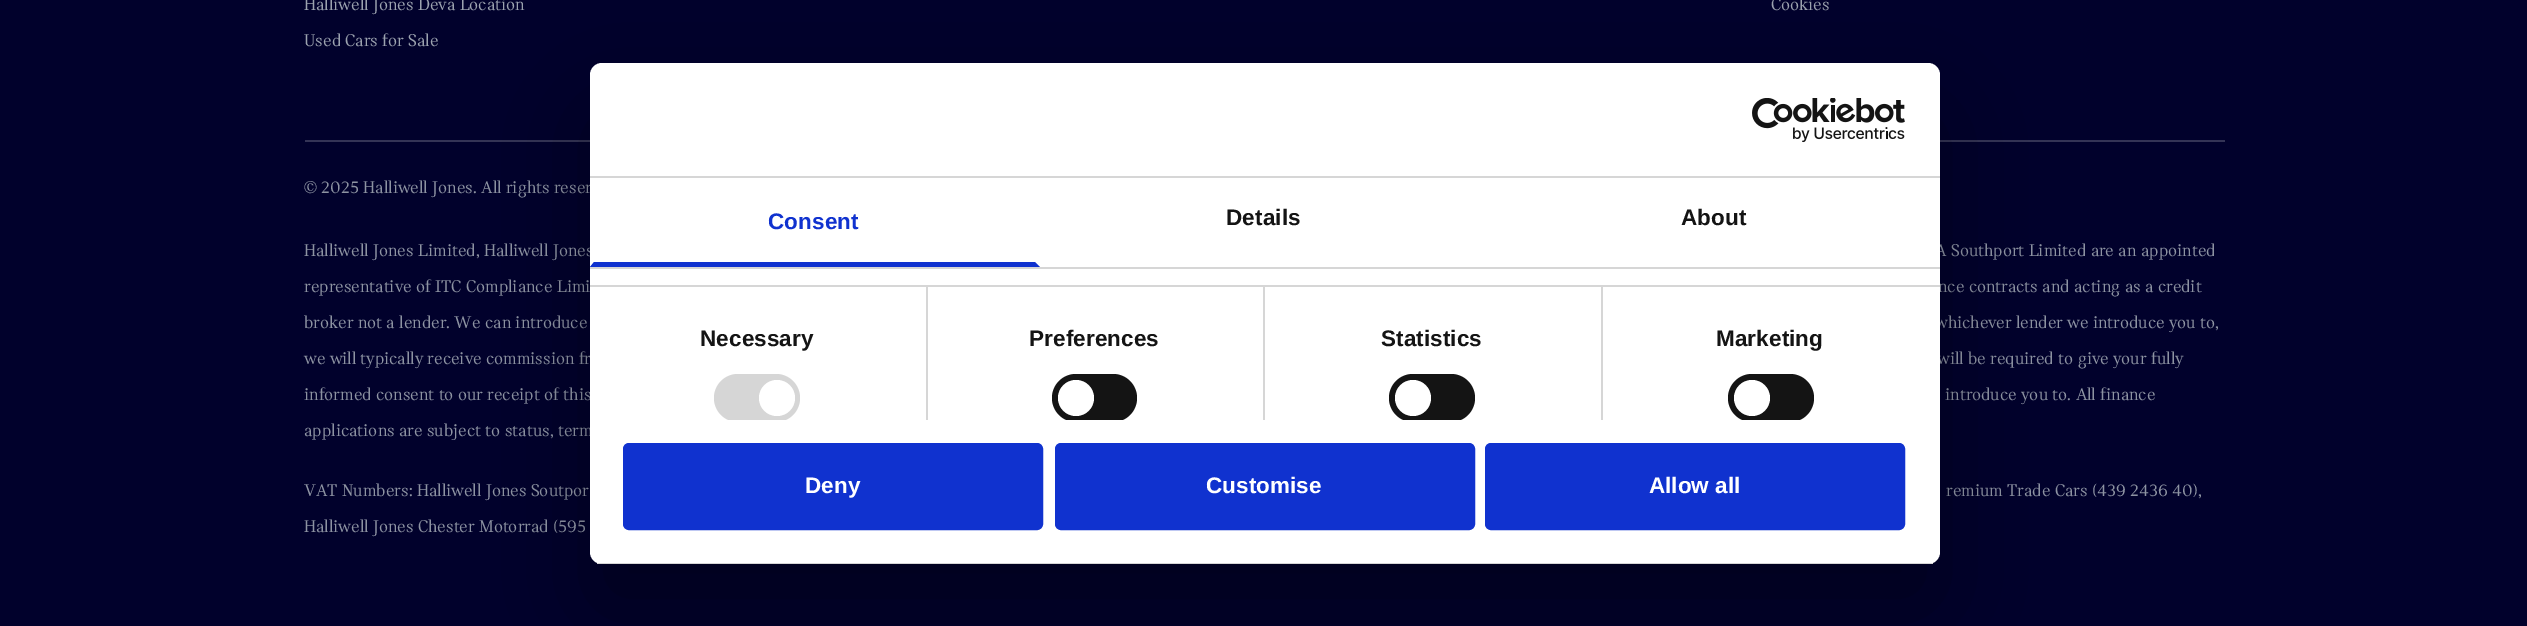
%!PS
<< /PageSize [2527 626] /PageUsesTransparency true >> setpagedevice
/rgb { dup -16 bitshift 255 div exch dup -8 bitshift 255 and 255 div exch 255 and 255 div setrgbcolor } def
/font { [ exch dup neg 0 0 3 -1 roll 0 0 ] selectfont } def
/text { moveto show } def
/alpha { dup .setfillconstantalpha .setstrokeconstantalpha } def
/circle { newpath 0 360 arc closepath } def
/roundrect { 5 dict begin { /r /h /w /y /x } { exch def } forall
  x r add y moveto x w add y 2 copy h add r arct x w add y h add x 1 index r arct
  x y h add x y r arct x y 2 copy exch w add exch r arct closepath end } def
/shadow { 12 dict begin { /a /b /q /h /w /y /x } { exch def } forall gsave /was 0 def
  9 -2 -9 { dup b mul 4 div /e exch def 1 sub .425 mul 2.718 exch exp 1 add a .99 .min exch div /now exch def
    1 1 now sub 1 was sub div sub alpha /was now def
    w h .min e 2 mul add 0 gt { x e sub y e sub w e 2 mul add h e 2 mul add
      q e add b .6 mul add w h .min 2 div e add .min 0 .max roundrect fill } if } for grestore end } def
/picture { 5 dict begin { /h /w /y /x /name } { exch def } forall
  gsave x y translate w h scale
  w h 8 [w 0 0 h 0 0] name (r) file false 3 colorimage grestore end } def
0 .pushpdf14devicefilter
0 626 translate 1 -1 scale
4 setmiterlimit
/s1 { /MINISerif-Regular 18 font 16#9CA3AF rgb } def
/s2 { /MINISerif-Regular 18 font 16#8D93A2 rgb } def
/s3 { /LiberationSans-Bold 22.5 font 16#FFFFFF rgb } def
16#01012C rgb
0 0 2527 626 rectfill
16#343456 rgb
305 140 1920 2 rectfill
s1
(Halliwell Jones Deva Location) 304 10 text
(Used Cars for Sale) 304 46 text
(Cookies) 1771 10 text
s2
(© 2025 Halliwell Jones. All rights reser) 304 193 text
(Halliwell Jones Limited, Halliwell Jones) 304 256 text
(A Southport Limited are an appointed) 1935 256 text
(representative of ITC Compliance Limi) 304 292 text
(nce contracts and acting as a credit) 1938 292 text
(broker not a lender. We can introduce) 304 328 text
(whichever lender we introduce you to,) 1935 328 text
(we will typically receive commission fr) 304 364 text
(will be required to give your fully) 1937 364 text
(informed consent to our receipt of this) 304 400 text
(introduce you to. All finance) 1945 400 text
(applications are subject to status, term) 304 436 text
(VAT Numbers: Halliwell Jones Soutpor) 304 496 text
(remium Trade Cars \(439 2436 40\),) 1946 496 text
(Halliwell Jones Chester Motorrad \(595) 304 532 text
16#000000 rgb
590 111 1350 501 12 51 0.3 shadow
16#FFFFFF rgb
590 63 1350 501 12 roundrect fill
16#D6D6D6 rgb
590 176 1350 2 rectfill
(pic1.raw) 1752 98 153 45 picture
590 267 1350 2 rectfill
16#1032CF rgb
1040 267 moveto 590 267 lineto 594 262 lineto 1035 262 lineto closepath fill
/LiberationSans-Bold 22.5 font
768 229 moveto 0.1 0 (Consent) ashow
16#141414 rgb
1226 225 moveto 0.1 0 (Details) ashow
1681 225 moveto 0.1 0 (About) ashow
16#D6D6D6 rgb
590 285 1350 2 rectfill
926 287 2 133 rectfill
16#141414 rgb
700 346 moveto 0.1 0 (Necessary) ashow
gsave
590 269 1350 151 rectclip
16#D6D6D6 rgb
714 374 86 48 24 roundrect fill
grestore
16#FFFFFF rgb
777 398 18 circle fill
16#D6D6D6 rgb
1263 287 2 133 rectfill
16#141414 rgb
1029 346 moveto 0.1 0 (Preferences) ashow
gsave
590 269 1350 151 rectclip
1052 374 85 48 24 roundrect fill
grestore
16#FFFFFF rgb
1076 398 18 circle fill
16#D6D6D6 rgb
1601 287 2 133 rectfill
16#141414 rgb
1381 346 moveto 0.1 0 (Statistics) ashow
gsave
590 269 1350 151 rectclip
1389 374 86 48 24 roundrect fill
grestore
16#FFFFFF rgb
1413 398 18 circle fill
16#141414 rgb
1716 346 moveto 0.1 0 (Marketing) ashow
gsave
590 269 1350 151 rectclip
1728 374 86 48 24 roundrect fill
grestore
16#FFFFFF rgb
1752 398 18 circle fill
gsave
590 63 1350 501 12 roundrect clip newpath
16#D6D6D6 rgb
590 563 1350 1 rectfill
grestore
16#1032CF rgb
624.5 444.5 417 84 4.5 roundrect gsave fill grestore
3 setlinewidth
stroke
s3
(Deny) 805 493 text
16#1032CF rgb
1056.5 444.5 417 84 4.5 roundrect gsave fill grestore
stroke
s3
(Customise) 1206 493 text
16#1032CF rgb
1486.5 444.5 417 84 4.5 roundrect gsave fill grestore
stroke
s3
(Allow all) 1649 493 text
.poppdf14devicefilter showpage
